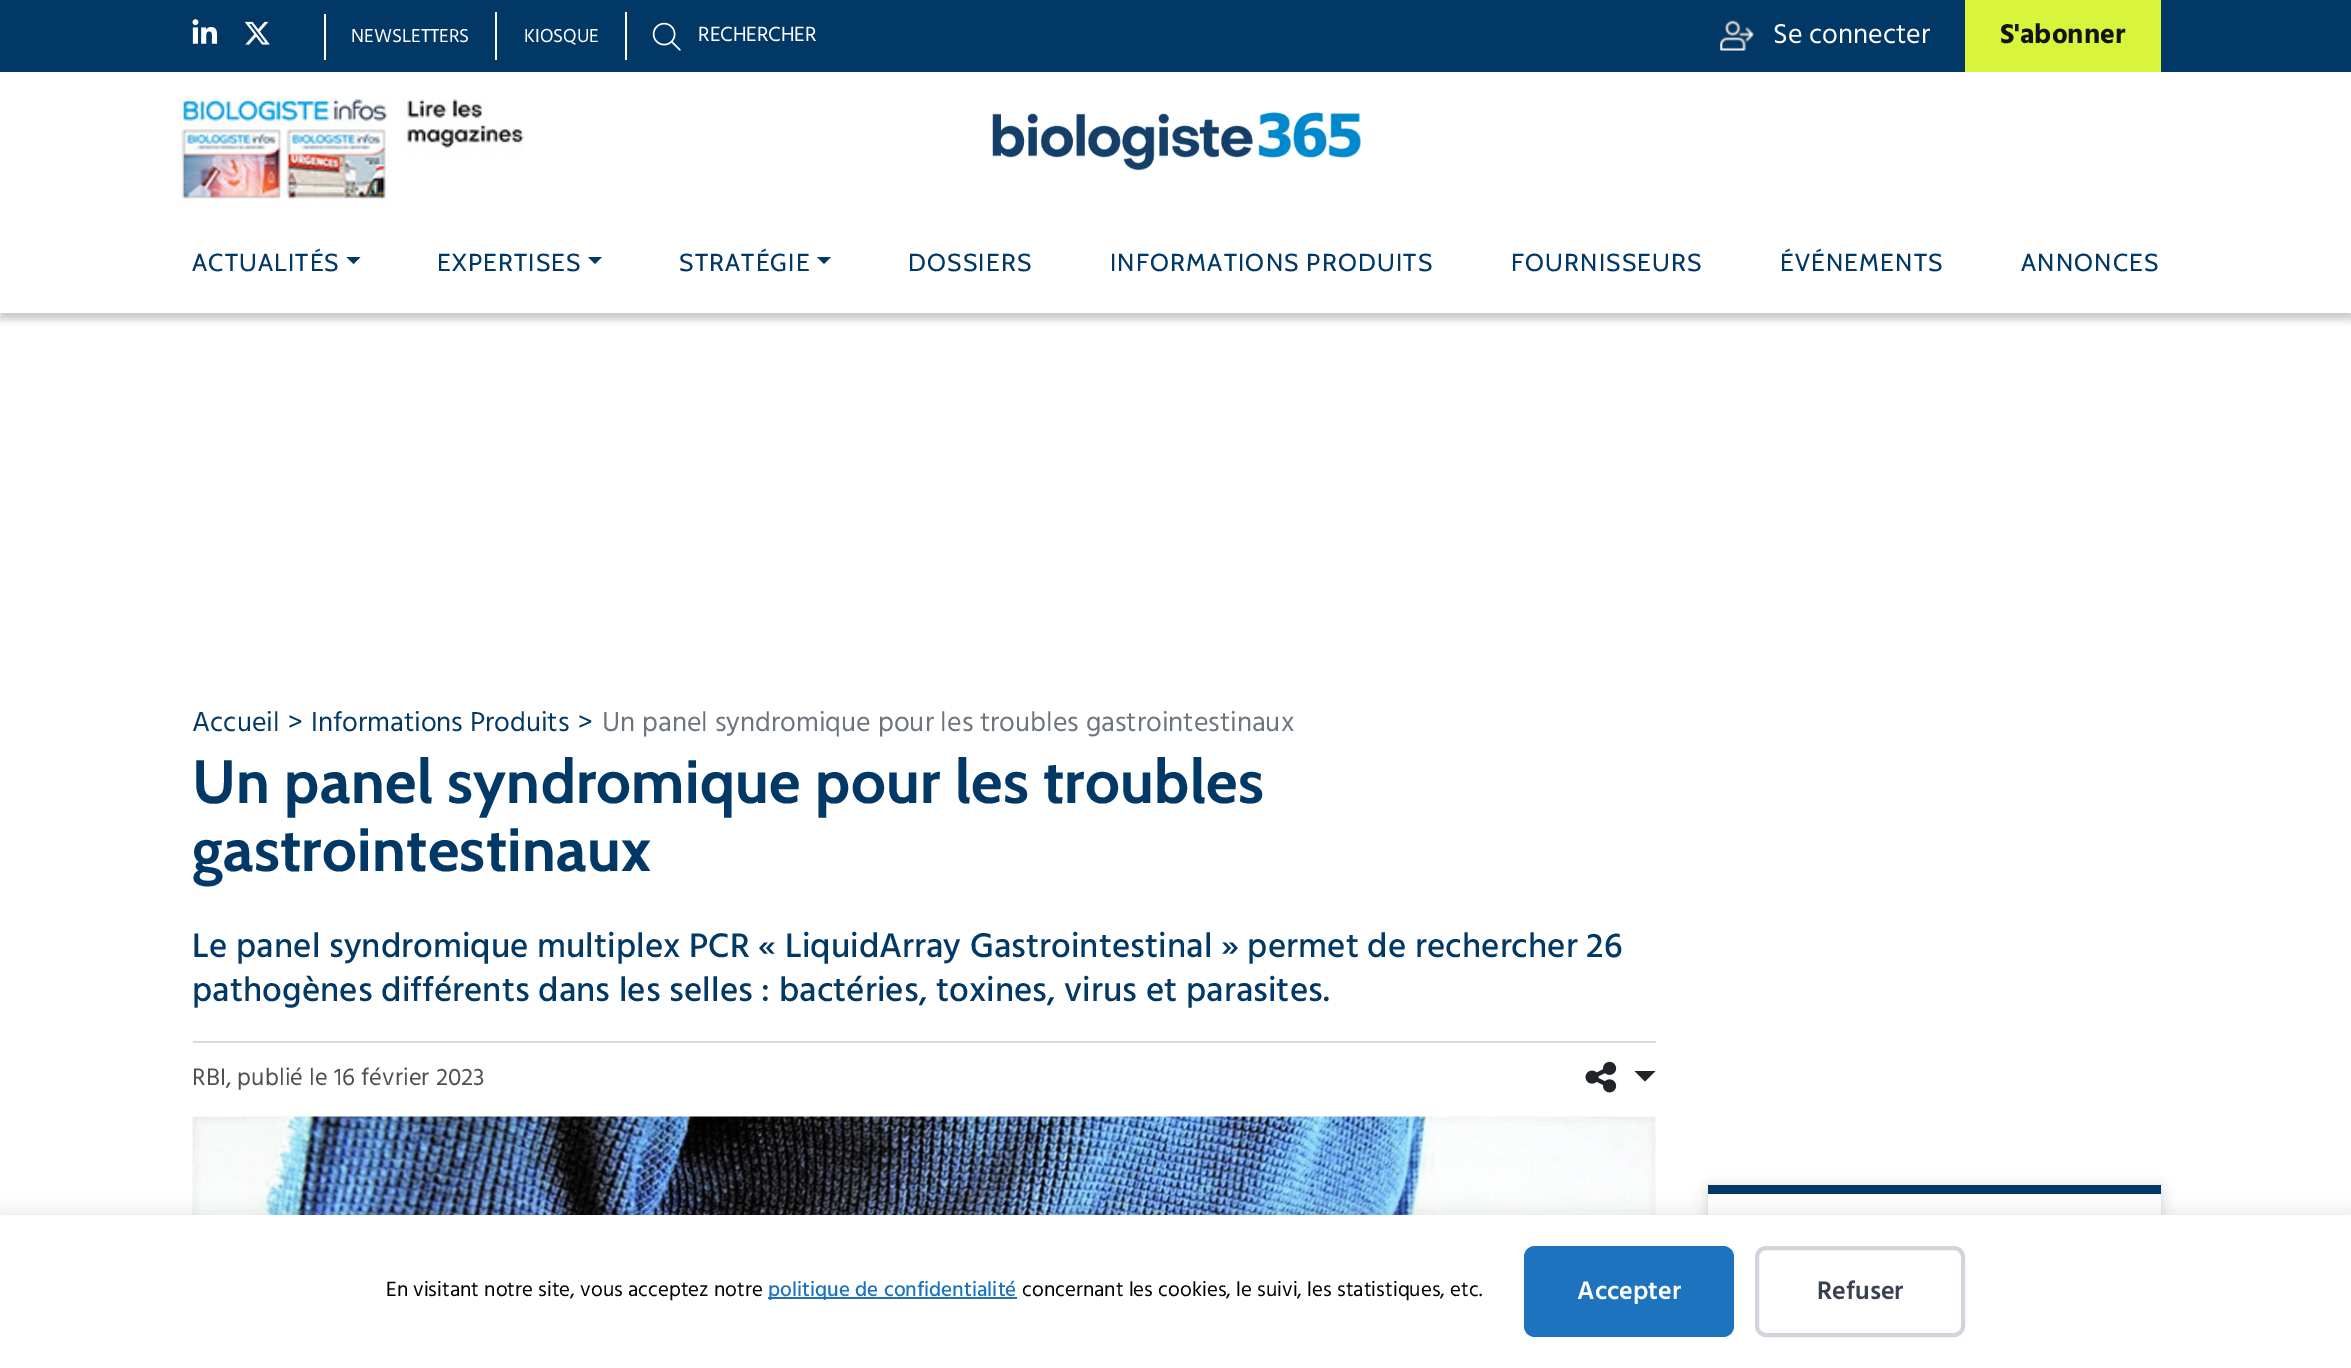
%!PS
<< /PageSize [2351 1368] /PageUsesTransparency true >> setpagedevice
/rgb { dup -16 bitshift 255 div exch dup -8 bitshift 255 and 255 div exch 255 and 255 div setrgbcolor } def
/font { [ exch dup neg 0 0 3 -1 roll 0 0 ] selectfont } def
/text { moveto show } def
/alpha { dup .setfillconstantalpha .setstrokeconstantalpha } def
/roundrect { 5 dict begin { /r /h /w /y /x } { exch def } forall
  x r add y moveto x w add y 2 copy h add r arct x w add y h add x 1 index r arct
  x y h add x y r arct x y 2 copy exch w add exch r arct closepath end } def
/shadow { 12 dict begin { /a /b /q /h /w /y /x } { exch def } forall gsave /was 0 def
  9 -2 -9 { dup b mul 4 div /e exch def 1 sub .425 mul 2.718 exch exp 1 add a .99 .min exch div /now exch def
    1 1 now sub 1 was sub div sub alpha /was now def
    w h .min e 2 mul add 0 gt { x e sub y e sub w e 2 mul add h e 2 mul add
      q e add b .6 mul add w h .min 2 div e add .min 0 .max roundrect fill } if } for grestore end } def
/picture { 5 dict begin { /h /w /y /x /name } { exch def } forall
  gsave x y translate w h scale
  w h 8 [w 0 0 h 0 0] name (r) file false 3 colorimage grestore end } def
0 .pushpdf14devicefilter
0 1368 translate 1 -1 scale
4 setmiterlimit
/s1 { /Hind-Regular 19.25 font 16#FFFFFF rgb } def
/s2 { /Hind-Regular 21 font 16#FFFFFF rgb } def
/s3 { /Hind-Regular 28 font 16#FFFFFF rgb } def
/s4 { /Hind-Bold 28 font 16#131313 rgb } def
/s5 { /Hind-Regular 28 font 16#023866 rgb } def
/s6 { /Hind-Regular 28 font 16#6C757D rgb } def
/s7 { /Hind-Regular 21 font 16#000000 rgb } def
/s8 { /Hind-Medium 21 font 16#1E73BE rgb } def
/s9 { /Hind-SemiBold 26 font 16#FFFFFF rgb } def
/s10 { /Hind-SemiBold 26 font 16#374151 rgb } def
16#FFFFFF rgb
0 0 2351 1368 rectfill
gsave
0 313 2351 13 rectclip
16#393F48 rgb
0 5 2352 314 0 4.5 0.3 shadow
grestore
16#023866 rgb
0 0 2351 72 rectfill
16#FFFFFF rgb
324 14 2 46 rectfill
(pic1.raw) 192 19 25 25 picture
(pic2.raw) 244 21 26 24 picture
495 12 2 48 rectfill
s1
(NEWSLETTERS) 351 42 text
625 12 2 48 rectfill
(KIOSQUE) 524 42 text
(pic3.raw) 652 22 29 29 picture
s2
(RECHERCHER) 698 41 text
(pic4.raw) 1720 20 34 31 picture
s3
(Se connecter) 1773 43 text
16#D8F43B rgb
1965 0 196 72 rectfill
s4
(S'abonner) 2000 43 text
(pic5.raw) 178 98 346 108 picture
(pic6.raw) 992 111 370 61 picture
/Cabin-Regular 24.5 font
16#023866 rgb
192 271 moveto 1.25 0 (ACTUALITÉS) ashow
346.5 257 moveto 360.5 257 lineto 353.5 264 lineto closepath fill
437 271 moveto 1.25 0 (EXPERTISES) ashow
588 257 moveto 602 257 lineto 595 264 lineto closepath fill
679 271 moveto 1.25 0 (STRATÉGIE) ashow
817 257 moveto 831 257 lineto 824 264 lineto closepath fill
908 271 moveto 1.25 0 (DOSSIERS) ashow
1110 271 moveto 1.25 0 (INFORMATIONS PRODUITS) ashow
1511 271 moveto 1.25 0 (FOURNISSEURS) ashow
1780 271 moveto 1.25 0 (ÉVÉNEMENTS) ashow
2021 271 moveto 1.25 0 (ANNONCES) ashow
s5
(Accueil) 192 731 text
(>) 288 731 text
(Informations Produits) 311 731 text
(>) 578 731 text
s6
(Un panel syndromique pour les troubles gastrointestinaux) 602 731 text
/Cabin-Bold 61.25 font
16#023866 rgb
192 803 moveto 0.3 0 (Un panel syndromique pour les troubles) ashow
192 871 moveto 0.3 0 (gastrointestinaux) ashow
/Hind-Medium 35 font
192 957 moveto 0.05 0 (Le panel syndromique multiplex PCR « LiquidArray Gastrointestinal » permet de rechercher 26) ashow
192 1001 moveto 0.05 0 (pathogènes différents dans les selles : bactéries, toxines, virus et parasites.) ashow
16#DBDBDB rgb
193 1041 1463 2 rectfill
/Hind-Regular 24.5 font
16#505050 rgb
192 1085 moveto 0.1 0 (RBI, publié le 16 février 2023) ashow
(pic7.raw) 1585 1061 32 32 picture
16#212529 rgb
1634.5 1071 moveto 1655.5 1071 lineto 1645 1081.5 lineto closepath fill
(pic8.raw) 192 1116 1464 99 picture
gsave
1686 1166 moveto 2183 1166 lineto 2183 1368 lineto 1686 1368 lineto closepath 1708 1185 moveto 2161 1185 lineto 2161 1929 lineto 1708 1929 lineto closepath eoclip newpath
16#000000 rgb
1708 1188 453 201 0 7 0.17 shadow
grestore
16#023866 rgb
1708 1185 453 9 rectfill
16#000000 rgb
0 1211 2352 154 0 9 0.08 shadow
16#FFFFFF rgb
0 1215 2351 153 rectfill
s7
(En visitant notre site, vous acceptez notre) 386 1296 text
16#1E73BE rgb
768 1297 249 2 rectfill
s8
(politique de confidentialité) 768 1296 text
s7
(concernant les cookies, le suivi, les statistiques, etc.) 1022 1296 text
16#1E73BE rgb
1524 1246 210 91 11 roundrect fill
s9
(Accepter) 1577 1299 text
16#D1D5DB rgb
4 setlinewidth
1757 1248 206 87 9 roundrect stroke
s10
(Refuser) 1817 1299 text
.poppdf14devicefilter showpage
